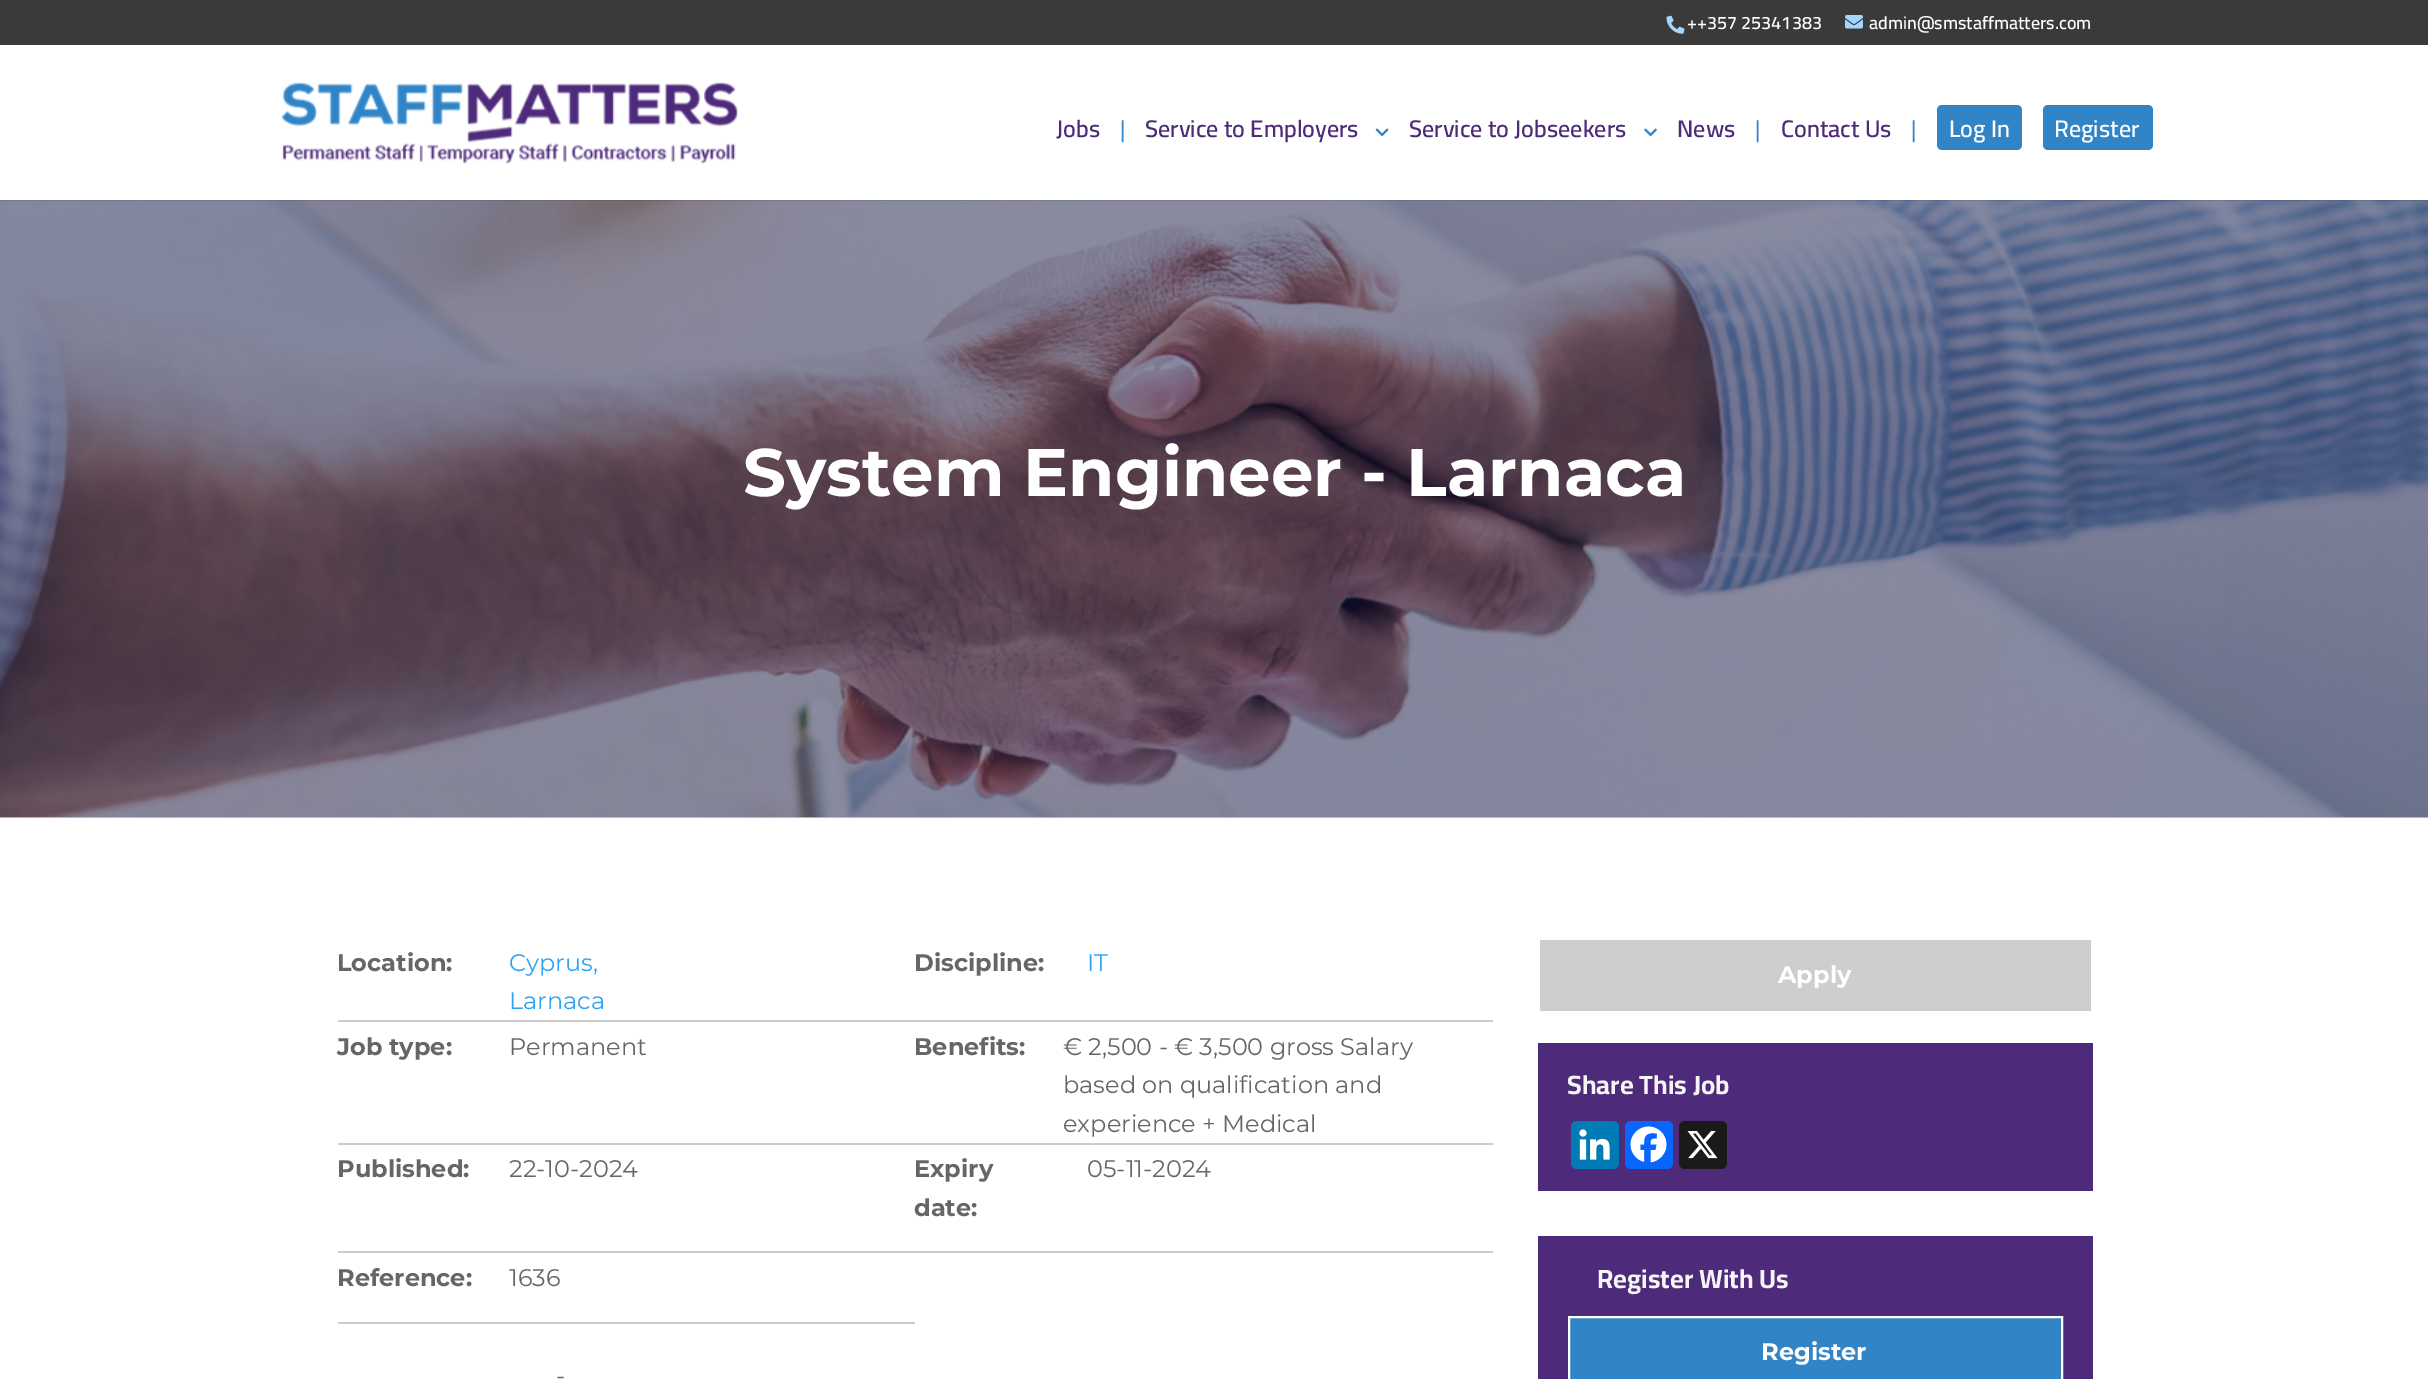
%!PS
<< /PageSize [2428 1379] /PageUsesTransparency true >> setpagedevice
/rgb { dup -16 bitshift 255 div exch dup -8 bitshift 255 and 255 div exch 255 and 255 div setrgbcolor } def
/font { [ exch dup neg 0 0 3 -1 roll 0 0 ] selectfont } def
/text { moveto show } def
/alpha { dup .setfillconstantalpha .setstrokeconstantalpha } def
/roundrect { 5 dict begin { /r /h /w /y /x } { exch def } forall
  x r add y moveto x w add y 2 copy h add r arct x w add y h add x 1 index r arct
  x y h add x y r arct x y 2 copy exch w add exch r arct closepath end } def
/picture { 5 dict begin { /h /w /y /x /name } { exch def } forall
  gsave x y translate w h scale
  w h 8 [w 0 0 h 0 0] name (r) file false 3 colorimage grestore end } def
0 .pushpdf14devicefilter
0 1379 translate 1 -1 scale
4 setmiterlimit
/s1 { /Cairo-SemiBold 18 font 16#FFFFFF rgb } def
/s2 { /Cairo-SemiBold 24 font 16#4D2A7A rgb } def
/s3 { /LiberationSerif-Bold 24 font 16#3184C6 rgb } def
/s4 { /Cairo-SemiBold 24 font 16#FFFFFF rgb } def
/s5 { /Montserrat-Bold 67.25 font 16#FFFFFF rgb } def
/s6 { /Montserrat-Bold 24 font 16#666666 rgb } def
/s7 { /Montserrat-Regular 24 font 16#2EA3F2 rgb } def
/s8 { /Montserrat-Regular 24 font 16#666666 rgb } def
/s9 { /Montserrat-Bold 24 font 16#FFFFFF rgb } def
/s10 { /Cairo-Bold 26.5 font 16#F5F5F5 rgb } def
16#FFFFFF rgb
0 0 2428 1379 rectfill
16#C9CCE2 rgb
0 817 2428 1 rectfill
16#3A3A3A rgb
0 0 2428 45 rectfill
(pic1.raw) 1666 15 19 19 picture
s1
(++357 25341383) 1687 29 text
(pic2.raw) 1845 15 18 14 picture
(admin@smstaffmatters.com) 1869 29 text
(pic6.raw) 0 200 2428 618 picture
0.1 alpha
16#000000 rgb
0 200 moveto 0 201 lineto 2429 201 lineto 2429 47 lineto 2428 47 lineto 2428 200 lineto closepath fill
1 alpha
(pic3.raw) 282 82 456 82 picture
s2
(Jobs) 1056 137 text
s3
(|) 1120 137 text
s2
(Service to Employers) 1145 137 text
(pic4.raw) 1375 128 14 9 picture
(Service to Jobseekers) 1409 137 text
(pic5.raw) 1644 128 13 9 picture
(News) 1677 137 text
s3
(|) 1755 137 text
s2
(Contact Us) 1781 137 text
s3
(|) 1911 137 text
1937 105 85 45 5 roundrect fill
s4
(Log In) 1949 137 text
16#3184C6 rgb
2043 105 110 45 5 roundrect fill
s4
(Register) 2054 137 text
s5
(System Engineer - Larnaca) 743 496 text
16#CCCCCC rgb
338 1020 1155 2 rectfill
s6
(Location:) 337 971 text
s7
(Cyprus,) 509 971 text
(Larnaca) 509 1009 text
s6
(Discipline:) 914 971 text
s7
(IT) 1087 971 text
16#CCCCCC rgb
338 1143 1155 2 rectfill
s6
(Job type:) 337 1055 text
s8
(Permanent) 509 1055 text
s6
(Benefits:) 914 1055 text
s8
(€ 2,500 - € 3,500 gross Salary) 1063 1055 text
(based on qualification and) 1063 1093 text
(experience + Medical) 1063 1132 text
16#CCCCCC rgb
338 1251 1155 2 rectfill
s6
(Published:) 337 1177 text
s8
(22-10-2024) 509 1177 text
s6
(Expiry) 914 1177 text
(date:) 914 1216 text
s8
(05-11-2024) 1087 1177 text
16#CCCCCC rgb
338 1322 577 2 rectfill
s6
(Reference:) 337 1286 text
s8
(1636) 509 1286 text
(-) 556 1384 text
16#CECECE rgb
1540 940 551 71 rectfill
s9
(Apply) 1778 983 text
16#4D2A7A rgb
1538 1043 555 148 rectfill
s10
(Share This Job) 1567 1094 text
16#007BB5 rgb
1571 1121 48 48 6 roundrect fill
(pic7.raw) 1579 1129 31 31 picture
16#0866FF rgb
1625 1121 48 48 6 roundrect fill
(pic8.raw) 1630 1126 37 37 picture
16#1A1A1A rgb
1679 1121 48 48 6 roundrect fill
(pic9.raw) 1687 1131 31 28 picture
16#4D2A7A rgb
1538 1236 555 143 rectfill
s10
(Register With Us) 1597 1288 text
16#3184C6 rgb
1569 1317 moveto 2062 1317 lineto 2062 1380 lineto 1569 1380 lineto closepath gsave fill grestore
16#FFFFFF rgb
2 setlinewidth
stroke
s9
(Register) 1761 1360 text
.poppdf14devicefilter showpage
